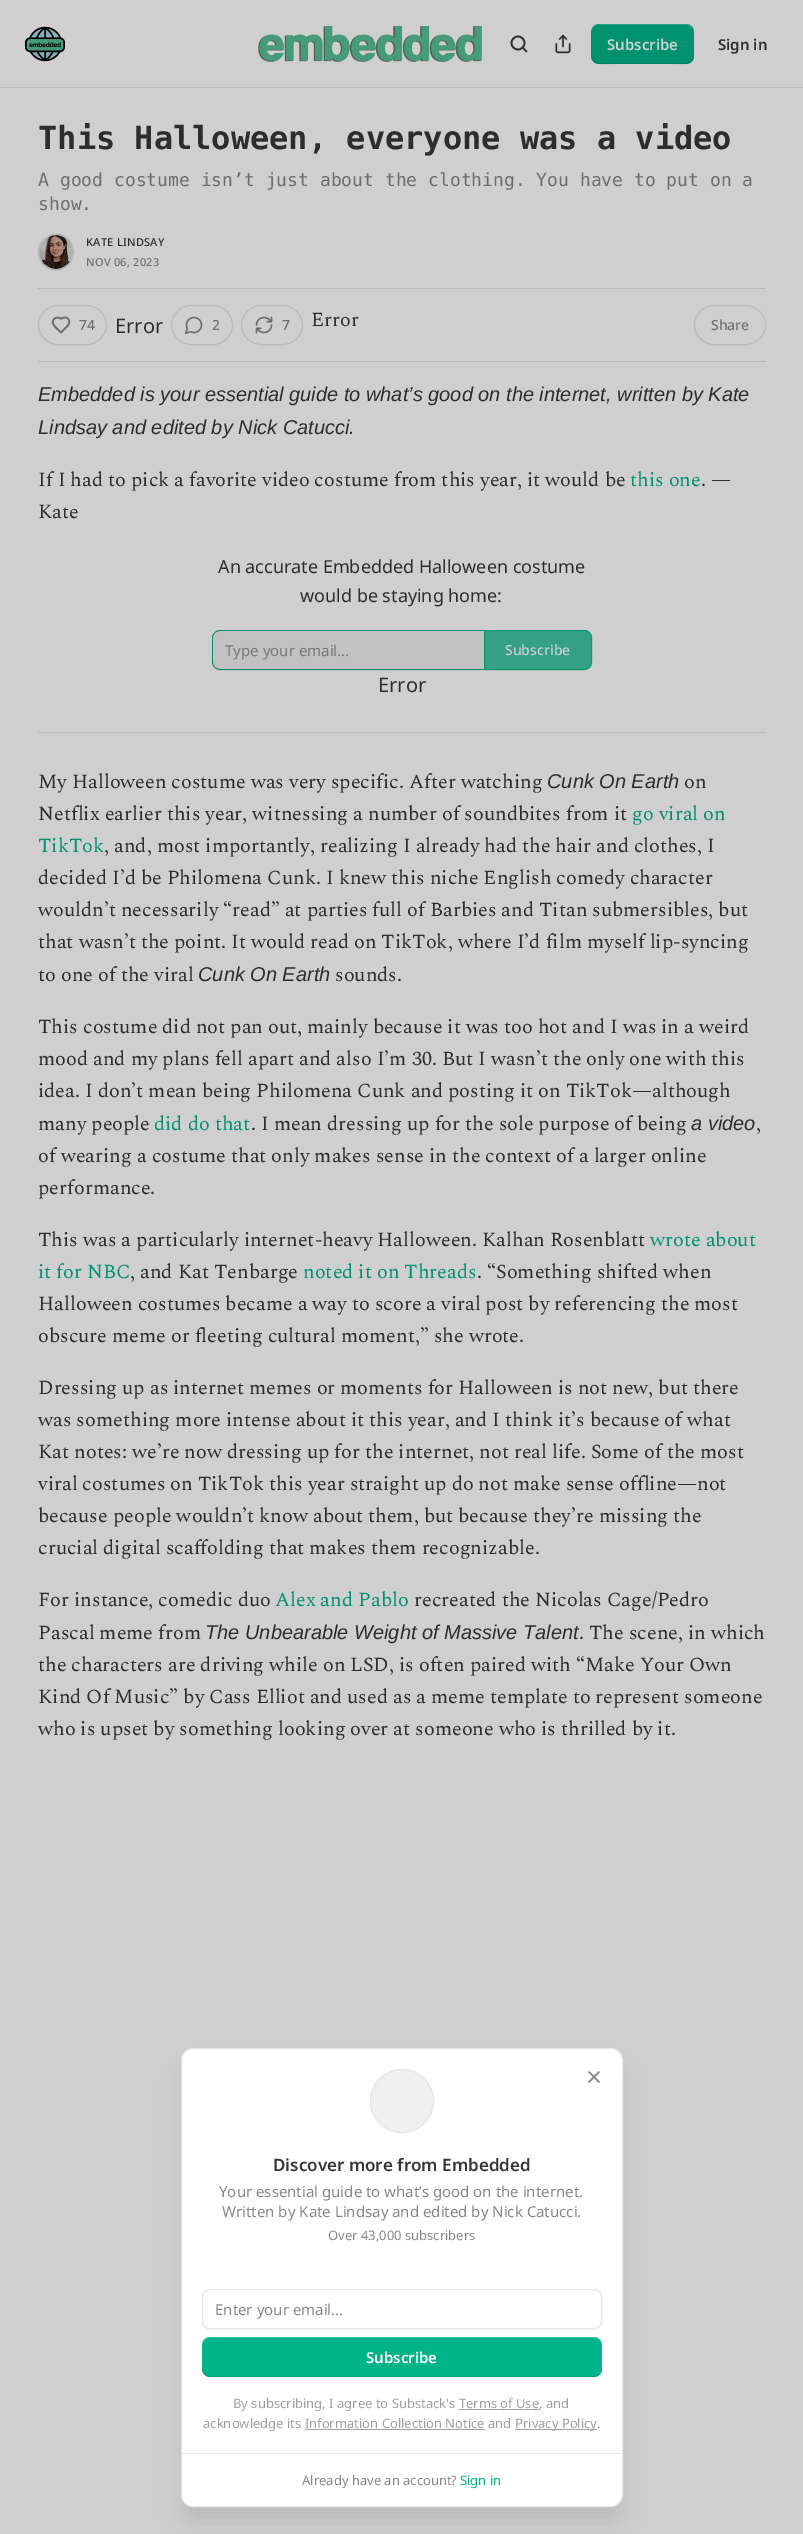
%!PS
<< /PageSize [803 2534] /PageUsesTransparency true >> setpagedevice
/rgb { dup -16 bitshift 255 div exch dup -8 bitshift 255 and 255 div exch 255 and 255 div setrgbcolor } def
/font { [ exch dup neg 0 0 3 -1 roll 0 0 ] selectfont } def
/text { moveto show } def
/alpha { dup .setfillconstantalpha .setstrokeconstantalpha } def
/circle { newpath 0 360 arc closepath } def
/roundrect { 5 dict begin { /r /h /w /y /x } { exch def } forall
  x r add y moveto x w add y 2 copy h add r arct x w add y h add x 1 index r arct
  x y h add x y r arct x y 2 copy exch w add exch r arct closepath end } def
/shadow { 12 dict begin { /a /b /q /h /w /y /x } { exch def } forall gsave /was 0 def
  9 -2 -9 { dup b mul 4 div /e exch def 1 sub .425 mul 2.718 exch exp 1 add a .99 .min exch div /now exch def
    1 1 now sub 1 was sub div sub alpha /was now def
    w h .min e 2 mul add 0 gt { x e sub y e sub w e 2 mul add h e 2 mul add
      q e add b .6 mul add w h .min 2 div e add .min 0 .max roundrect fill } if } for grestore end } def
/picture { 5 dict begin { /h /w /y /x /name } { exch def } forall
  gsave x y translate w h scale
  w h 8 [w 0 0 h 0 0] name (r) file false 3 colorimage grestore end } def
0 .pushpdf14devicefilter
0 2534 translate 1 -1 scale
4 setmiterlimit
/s1 { /NotoSans-SemiBold 15 font 16#CFCFCF rgb } def
/s2 { /NotoSans-SemiBold 15 font 16#2C2D2D rgb } def
/s3 { /DejaVuSansMono-Bold 32 font 16#2C2D2D rgb } def
/s4 { /DejaVuSansMono-Regular 18 font 16#6D6D6D rgb } def
/s5 { /NotoSans-Medium 14 font 16#6D6D6D rgb } def
/s6 { /NotoSans-Regular 20 font 16#2C2D2D rgb } def
/s7 { /Spectral-Regular 20 font 16#2C2D2D rgb } def
/s8 { /LiberationSans-Italic 20 font 16#2C2D2D rgb } def
/s9 { /Spectral-Regular 20 font 16#00926E rgb } def
/s10 { /NotoSans-Regular 18 font 16#2C2D2D rgb } def
/s11 { /NotoSans-Regular 15 font 16#767676 rgb } def
/s12 { /NotoSans-Medium 14 font 16#CFCFCF rgb } def
/s13 { /NotoSans-SemiBold 17 font 16#363737 rgb } def
/s14 { /NotoSans-Regular 15 font 16#868787 rgb } def
/s15 { /NotoSans-Regular 13 font 16#868787 rgb } def
/s16 { /NotoSans-SemiBold 15 font 16#FFFFFF rgb } def
/s17 { /NotoSans-Regular 13 font 16#9E9F9F rgb } def
/s18 { /NotoSans-Regular 13 font 16#00B488 rgb } def
16#CFCFCF rgb
0 0 803 2534 rectfill
16#BABABA rgb
0 87 803 1 rectfill
(pic1.raw) 25 26 40 36 picture
(pic2.raw) 258 26 224 36 picture
16#2C2D2D rgb
1.7 setlinewidth
518 43 6.5 circle stroke
1 setlinecap
1 setlinejoin
526.5 51.5 moveto 523 48 lineto stroke
(pic3.raw) 555 34 16 20 picture
16#00926E rgb
591 24 103 40 8 roundrect fill
0.1 alpha
16#000000 rgb
591 55 moveto 591 67 605 64 614 64 curveto 672 64 lineto 680 64 694 67 694 55 curveto 694 59 690 63 686 63 curveto 599 63 lineto 595 63 591 59 591 55 curveto closepath fill
0.2 alpha
16#CFCFCF rgb
599 25 moveto 686 25 lineto 690 25 694 29 694 33 curveto 694 21 680 24 672 24 curveto 614 24 lineto 605 24 591 21 591 33 curveto 591 29 595 25 599 25 curveto closepath fill
1 alpha
s1
(Subscribe) 607 50 text
s2
(Sign in) 718 50 text
s3
(This Halloween, everyone was a video) 38 149 text
s4
(A good costume isn’t just about the clothing. You have to put on a) 38 186 text
(show.) 38 210 text
16#BABABA rgb
1 setlinewidth
0 setlinecap
0 setlinejoin
56 252 17.5 circle stroke
(pic4.raw) 38 234 36 36 picture
56 252 17.5 circle stroke
/NotoSans-Medium 11 font
16#2C2D2D rgb
86 246 moveto 0.25 0 (KATE LINDSAY) ashow
16#6D6D6D rgb
86 266 moveto 0.25 0 (NOV 06, 2023) ashow
16#BABABA rgb
38 288 728 1 rectfill
38 361 728 1 rectfill
38.5 305.5 68 39 19.5 roundrect stroke
16#6D6D6D rgb
1.7 setlinewidth
1 setlinecap
1 setlinejoin
67 326.5 moveto 73 320.5 66 314.5 61 319 curveto 57.5 315.5 51.5 318.5 53 323.5 curveto 54 326.5 59 330.5 61 332.5 curveto closepath stroke
s5
(74) 79 330 text
s6
(Error) 115 333 text
16#BABABA rgb
1 setlinewidth
0 setlinecap
0 setlinejoin
171.5 305.5 61 39 19.5 roundrect stroke
(pic5.raw) 184 316 19 19 picture
s5
(2) 212 330 text
16#BABABA rgb
241.5 305.5 61 39 19.5 roundrect stroke
(pic6.raw) 255 316 18 18 picture
s5
(7) 282 330 text
s7
(Error) 311 326 text
16#BABABA rgb
694.5 305.5 71 39 19.5 roundrect stroke
s5
(Share) 711 330 text
s8
(Embedded is your essential guide to what’s good on the internet, written by Kate) 38 401 text
(Lindsay and edited by Nick Catucci.) 38 434 text
s7
(If I had to pick a favorite video costume from this year, it would be) 38 486 text
s9
(this one) 630 486 text
s7
(. —) 701 486 text
(Kate) 38 518 text
s10
(An accurate Embedded Halloween costume) 218 573 text
(would be staying home:) 300 602 text
16#000000 rgb
212 631 272 40 8 1 0.05 shadow
16#C2C2C2 rgb
220 631 moveto 484 631 lineto 484 669 lineto 220 669 lineto 216 669 213 666 213 662 curveto 213 638 lineto 213 634 216 631 220 631 curveto closepath fill
16#00926E rgb
220 630 moveto 484 630 lineto 484 670 lineto 220 670 lineto 216 670 212 666 212 662 curveto 212 638 lineto 212 634 216 630 220 630 curveto closepath 220 631 moveto 484 631 lineto 484 669 lineto 220 669 lineto 216 669 213 666 213 662 curveto 213 638 lineto 213 634 216 631 220 631 curveto closepath eofill
s11
(Type your email...) 225 656 text
0.75 alpha
16#00926E rgb
484 630 moveto 584 630 lineto 588.5 630 592 633.5 592 638 curveto 592 662 lineto 592 666.5 588.5 670 584 670 curveto 484 670 lineto closepath fill
484.5 630.5 moveto 584 630.5 lineto 588 630.5 591.5 634 591.5 638 curveto 591.5 662 lineto 591.5 666 588 669.5 584 669.5 curveto 484.5 669.5 lineto closepath stroke
1 alpha
s12
(Subscribe) 505 655 text
s6
(Error) 378 692 text
16#BABABA rgb
38 732 728 1 rectfill
s7
(My Halloween costume was very specific. After watching) 38 788 text
s8
(Cunk On Earth) 547 788 text
s7
(on) 684 788 text
(Netflix earlier this year, witnessing a number of soundbites from it) 38 820 text
s9
(go viral on) 632 820 text
(TikTok) 38 852 text
s7
(, and, most importantly, realizing I already had the hair and clothes, I) 104 852 text
(decided I’d be Philomena Cunk. I knew this niche English comedy character) 38 884 text
(wouldn’t necessarily “read” at parties full of Barbies and Titan submersibles, but) 38 916 text
(that wasn’t the point. It would read on TikTok, where I’d film myself lip-syncing) 38 948 text
(to one of the viral) 38 981 text
s8
(Cunk On Earth) 198 981 text
s7
(sounds.) 335 981 text
(This costume did not pan out, mainly because it was too hot and I was in a weird) 38 1033 text
(mood and my plans fell apart and also I’m 30. But I wasn’t the only one with this) 38 1065 text
(idea. I don’t mean being Philomena Cunk and posting it on TikTok—although) 38 1097 text
(many people) 38 1130 text
s9
(did do that) 154 1130 text
s7
(. I mean dressing up for the sole purpose of being) 251 1130 text
s8
(a video) 691 1130 text
s7
(,) 756 1130 text
(of wearing a costume that only makes sense in the context of a larger online) 38 1162 text
(performance.) 38 1194 text
(This was a particularly internet-heavy Halloween. Kalhan Rosenblatt) 38 1246 text
s9
(wrote about) 650 1246 text
(it for NBC) 38 1278 text
s7
(, and Kat Tenbarge) 130 1278 text
s9
(noted it on Threads) 303 1278 text
s7
(. “Something shifted when) 477 1278 text
(Halloween costumes became a way to score a viral post by referencing the most) 38 1310 text
(obscure meme or fleeting cultural moment,” she wrote.) 38 1342 text
(Dressing up as internet memes or moments for Halloween is not new, but there) 38 1394 text
(was something more intense about it this year, and I think it’s because of what) 38 1426 text
(Kat notes: we’re now dressing up for the internet, not real life. Some of the most) 38 1458 text
(viral costumes on TikTok this year straight up do not make sense offline—not) 38 1490 text
(because people wouldn’t know about them, but because they’re missing the) 38 1522 text
(crucial digital scaffolding that makes them recognizable.) 38 1554 text
(For instance, comedic duo) 38 1606 text
s9
(Alex and Pablo) 275 1606 text
s7
(recreated the Nicolas Cage/Pedro) 414 1606 text
(Pascal meme from) 38 1639 text
s8
(The Unbearable Weight of Massive Talent) 205 1639 text
s7
(. The scene, in which) 579 1639 text
(the characters are driving while on LSD, is often paired with “Make Your Own) 38 1671 text
(Kind Of Music” by Cass Elliot and used as a meme template to represent someone) 38 1703 text
(who is upset by something looking over at someone who is thrilled by it.) 38 1735 text
16#000000 rgb
186 2073 432 449 7 12.5 0.1 shadow
16#FFFFFF rgb
181.5 2048.5 441 458 11.5 roundrect gsave fill grestore
16#E6E6E6 rgb
stroke
402 2101 31.5 circle stroke
16#F0F0F0 rgb
402 2101 31.5 circle gsave fill grestore
16#E6E6E6 rgb
stroke
16#868787 rgb
1.7 setlinewidth
1 setlinecap
1 setlinejoin
599 2072 moveto 589 2082 lineto 589 2072 moveto 599 2082 lineto stroke
s13
(Discover more from Embedded) 273 2171 text
s14
(Your essential guide to what’s good on the internet.) 219 2197 text
(Written by Kate Lindsay and edited by Nick Catucci.) 222 2217 text
s15
(Over 43,000 subscribers) 328 2240 text
16#000000 rgb
202 2290 400 40 8 1 0.05 shadow
16#FFFFFF rgb
202.5 2289.5 399 39 7.5 roundrect gsave fill grestore
16#E6E6E6 rgb
1 setlinewidth
0 setlinecap
0 setlinejoin
stroke
s14
(Enter your email...) 215 2315 text
16#00B488 rgb
202 2337 400 40 8 roundrect fill
0.1 alpha
16#000000 rgb
202 2368 moveto 202 2369 lineto 202 2373 206 2377 210 2377 curveto 594 2377 lineto 598 2377 602 2373 602 2369 curveto 602 2368 lineto 602 2372 598 2376 594 2376 curveto 210 2376 lineto 206 2376 202 2372 202 2368 curveto closepath fill
0.2 alpha
16#FFFFFF rgb
210 2338 moveto 594 2338 lineto 598 2338 602 2342 602 2346 curveto 602 2345 lineto 602 2341 598 2337 594 2337 curveto 210 2337 lineto 206 2337 202 2341 202 2345 curveto 202 2346 lineto 202 2342 206 2338 210 2338 curveto closepath fill
1 alpha
s16
(Subscribe) 366 2363 text
s17
(By subscribing, I agree to Substack's Terms of Use, and) 233 2408 text
459 2409 80 1 rectfill
(acknowledge its Information Collection Notice and) 203 2428 text
515 2429 82 1 rectfill
(Privacy Policy.) 515 2428 text
305 2429 180 1 rectfill
16#E6E6E6 rgb
182 2453 440 1 rectfill
s15
(Already have an account?) 302 2485 text
s18
(Sign in) 460 2485 text
.poppdf14devicefilter showpage
